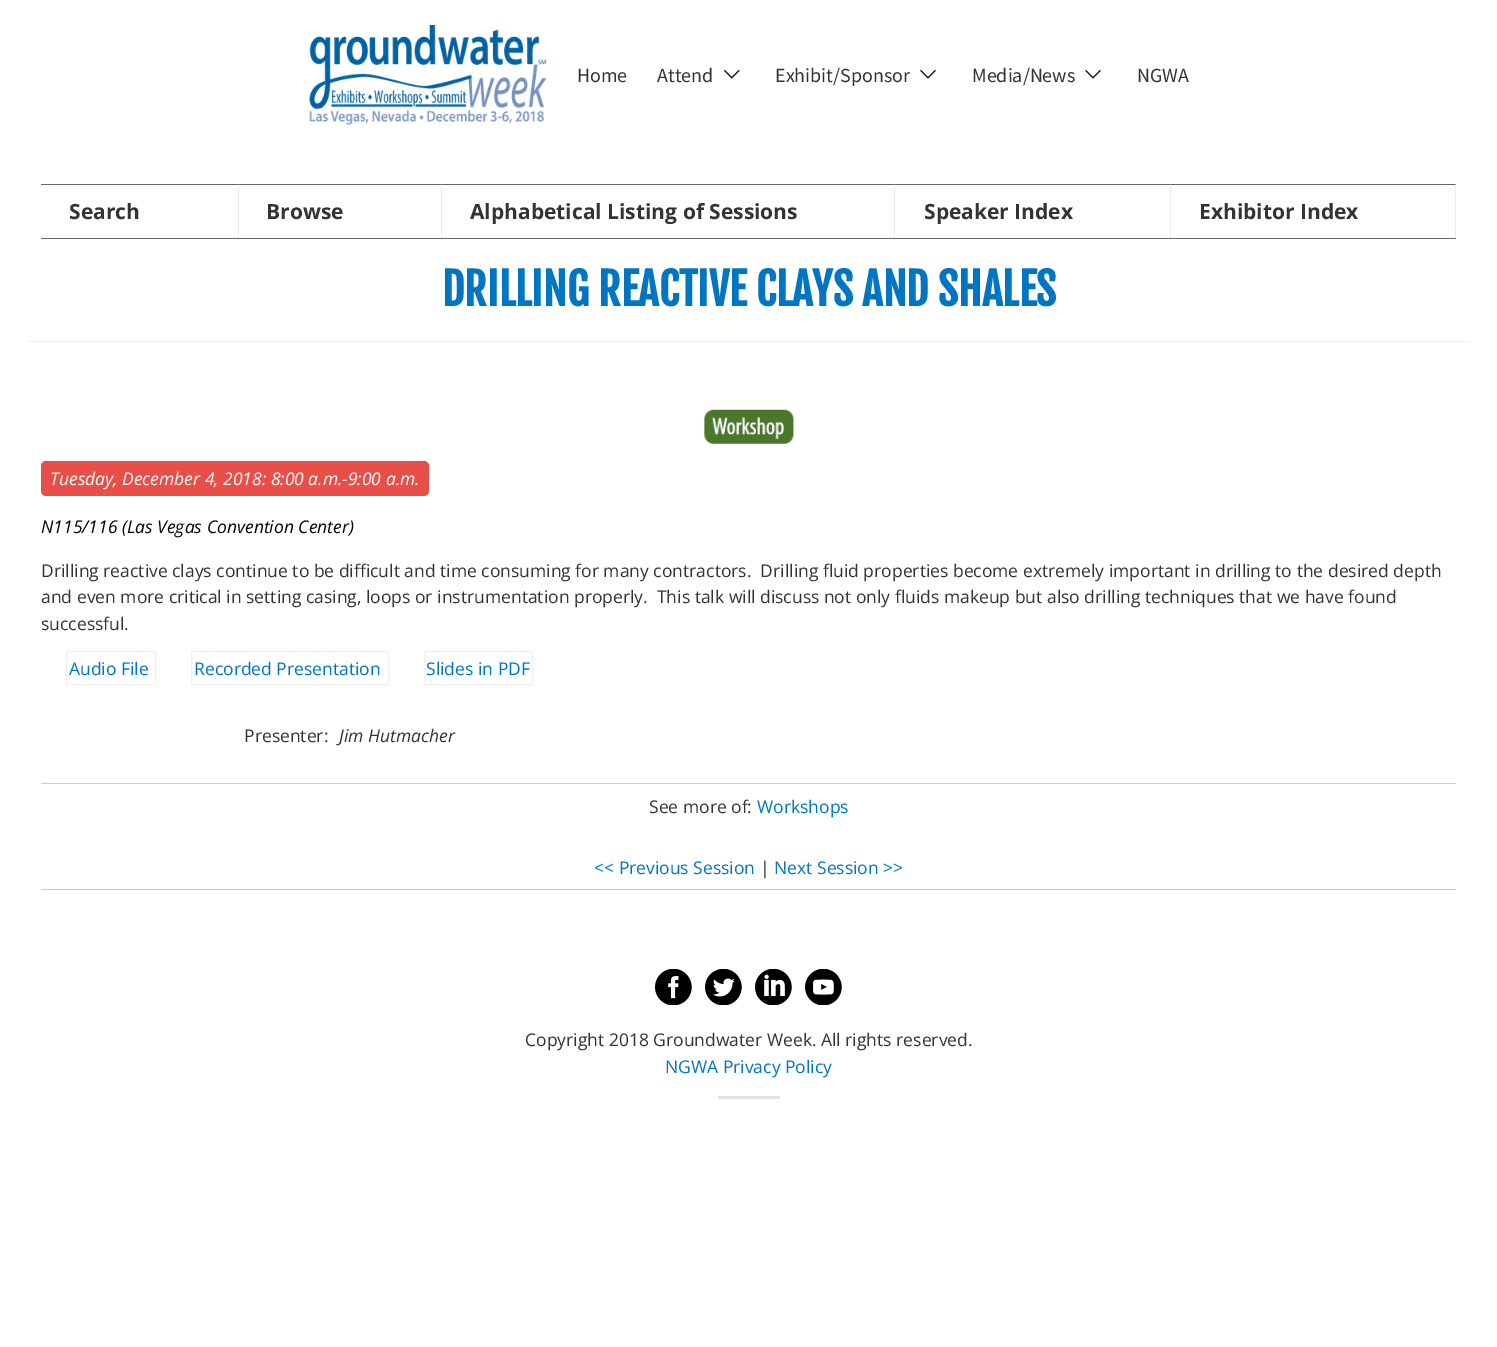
%!PS
<< /PageSize [1497 1347] /PageUsesTransparency true >> setpagedevice
/rgb { dup -16 bitshift 255 div exch dup -8 bitshift 255 and 255 div exch 255 and 255 div setrgbcolor } def
/font { [ exch dup neg 0 0 3 -1 roll 0 0 ] selectfont } def
/text { moveto show } def
/alpha { dup .setfillconstantalpha .setstrokeconstantalpha } def
/roundrect { 5 dict begin { /r /h /w /y /x } { exch def } forall
  x r add y moveto x w add y 2 copy h add r arct x w add y h add x 1 index r arct
  x y h add x y r arct x y 2 copy exch w add exch r arct closepath end } def
/picture { 5 dict begin { /h /w /y /x /name } { exch def } forall
  gsave x y translate w h scale
  w h 8 [w 0 0 h 0 0] name (r) file false 3 colorimage grestore end } def
0 .pushpdf14devicefilter
0 1347 translate 1 -1 scale
4 setmiterlimit
/s1 { /SourceSansPro-Regular 20 font 16#333333 rgb } def
/s2 { /OpenSans-Bold 21 font 16#333333 rgb } def
/s3 { /FjallaOne-Bold 43.75 font 16#0075C1 rgb } def
/s4 { /OpenSans-Italic 17.5 font 16#FFFFFF rgb } def
/s5 { /OpenSans-Italic 17.5 font 16#000000 rgb } def
/s6 { /OpenSans-Regular 17.5 font 16#333333 rgb } def
/s7 { /OpenSans-Regular 17.5 font 16#0075C1 rgb } def
/s8 { /OpenSans-Italic 17.5 font 16#333333 rgb } def
16#FFFFFF rgb
0 0 1497 1347 rectfill
(pic1.raw) 309 25 238 100 picture
s1
(Home) 577 82 text
(Attend) 657 82 text
(pic2.raw) 724 69 16 10 picture
(Exhibit/Sponsor) 775 82 text
(pic3.raw) 920 69 16 10 picture
(Media/News) 972 82 text
(pic3.raw) 1085 69 16 10 picture
(NGWA) 1137 82 text
16#666666 rgb
41 238 1415 1 rectfill
41 184 moveto 239 184 lineto 238 185 lineto 41 185 lineto closepath fill
0.1 alpha
16#494949 rgb
239 184 moveto 239 238 lineto 238 238 lineto 238 185 lineto closepath fill
1 alpha
s2
(Search) 69 219 text
16#666666 rgb
239 184 moveto 442 184 lineto 441 185 lineto 239 185 lineto closepath fill
0.1 alpha
16#494949 rgb
442 184 moveto 442 238 lineto 441 238 lineto 441 185 lineto closepath fill
1 alpha
s2
(Browse) 266 219 text
16#666666 rgb
442 184 moveto 895 184 lineto 894 185 lineto 442 185 lineto closepath fill
0.1 alpha
16#494949 rgb
895 184 moveto 895 238 lineto 894 238 lineto 894 185 lineto closepath fill
1 alpha
s2
(Alphabetical Listing of Sessions) 470 219 text
16#666666 rgb
895 184 moveto 1171 184 lineto 1170 185 lineto 895 185 lineto closepath fill
0.1 alpha
16#494949 rgb
1171 184 moveto 1171 238 lineto 1170 238 lineto 1170 185 lineto closepath fill
1 alpha
s2
(Speaker Index) 924 219 text
16#666666 rgb
1171 184 moveto 1456 184 lineto 1455 185 lineto 1171 185 lineto closepath fill
0.1 alpha
16#494949 rgb
1456 184 moveto 1456 238 lineto 1455 238 lineto 1455 185 lineto closepath fill
1 alpha
s2
(Exhibitor Index) 1199 219 text
16#EDEDED rgb
29 341 1440 1 rectfill
s3
(DRILLING REACTIVE CLAYS AND SHALES) 442 306 text
(pic4.raw) 704 409 90 35 picture
16#E94F49 rgb
41 461 388 35 5 roundrect fill
s4
(Tuesday, December 4, 2018: 8:00 a.m.-9:00 a.m.) 50 485 text
s5
(N115/116 \(Las Vegas Convention Center\)) 41 533 text
s6
(Drilling reactive clays continue to be difficult and time consuming for many contractors.  Drilling fluid properties become extremely important in drilling to the desired depth) 41 577 text
(and even more critical in setting casing, loops or instrumentation properly.  This talk will discuss not only fluids makeup but also drilling techniques that we have found) 41 603 text
(successful.) 41 630 text
16#EFEFEF rgb
66.5 651.5 89 33 rectstroke
s7
(Audio File) 69 675 text
16#EFEFEF rgb
191.5 651.5 197 33 rectstroke
s7
(Recorded Presentation) 194 675 text
16#EFEFEF rgb
424.5 651.5 108 33 rectstroke
s7
(Slides in PDF) 426 675 text
s6
(Presenter:) 244 742 text
s8
(Jim Hutmacher) 339 742 text
16#CCCCCC rgb
41 783 1415 1 rectfill
s6
(See more of:) 649 813 text
s7
(Workshops) 757 813 text
16#CCCCCC rgb
41 889 1415 1 rectfill
s7
(<< Previous Session) 594 874 text
s6
(|) 760 874 text
s7
(Next Session >>) 774 874 text
(pic5.raw) 655 969 37 36 picture
(pic6.raw) 705 969 37 36 picture
(pic7.raw) 755 969 37 36 picture
(pic8.raw) 805 969 37 36 picture
s6
(Copyright 2018 Groundwater Week. All rights reserved.) 525 1046 text
s7
(NGWA Privacy Policy) 665 1073 text
16#E2E2E2 rgb
718 1096 62 3 rectfill
.poppdf14devicefilter showpage
